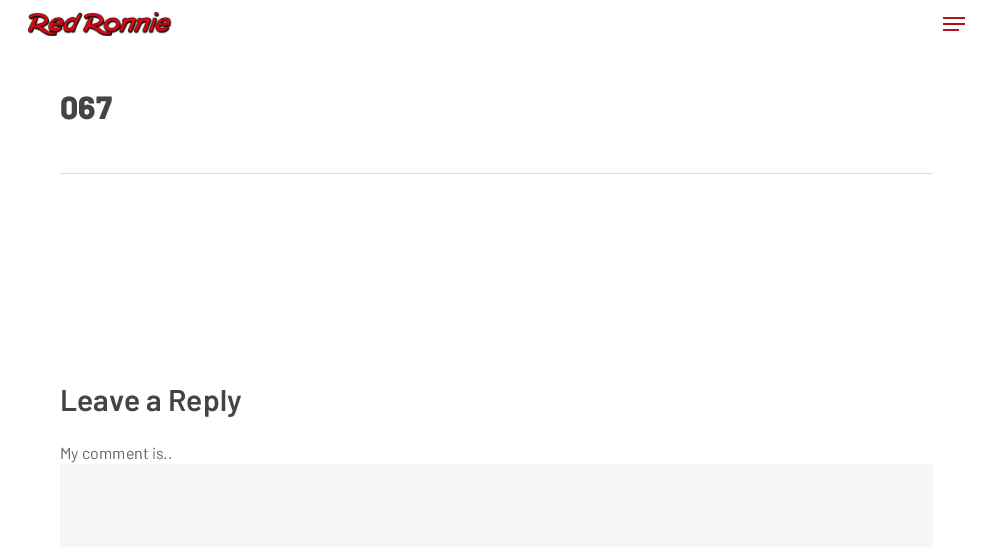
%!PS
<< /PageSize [993 547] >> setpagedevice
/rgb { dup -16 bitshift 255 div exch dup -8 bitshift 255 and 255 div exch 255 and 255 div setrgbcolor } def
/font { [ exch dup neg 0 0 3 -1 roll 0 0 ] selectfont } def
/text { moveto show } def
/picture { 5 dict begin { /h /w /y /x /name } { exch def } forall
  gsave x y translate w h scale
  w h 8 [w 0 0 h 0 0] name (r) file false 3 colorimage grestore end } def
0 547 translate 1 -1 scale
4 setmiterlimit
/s1 { /Barlow-ExtraBold 32 font 16#444444 rgb } def
/s2 { /Barlow-SemiBold 30 font 16#444444 rgb } def
/s3 { /Barlow-Regular 16 font 16#676767 rgb } def
16#FFFFFF rgb
0 0 993 547 rectfill
(pic1.raw) 28 12 144 24 picture
16#AA1520 rgb
943 17 22 2 rectfill
943 29 16 2 rectfill
943 23 22 2 rectfill
16#DDDDDD rgb
60 173 873 1 rectfill
s1
(067) 60 119 text
s2
(Leave a Reply) 60 411 text
s3
(My comment is..) 60 459 text
16#F6F6F6 rgb
60 464 873 83 rectfill
showpage
